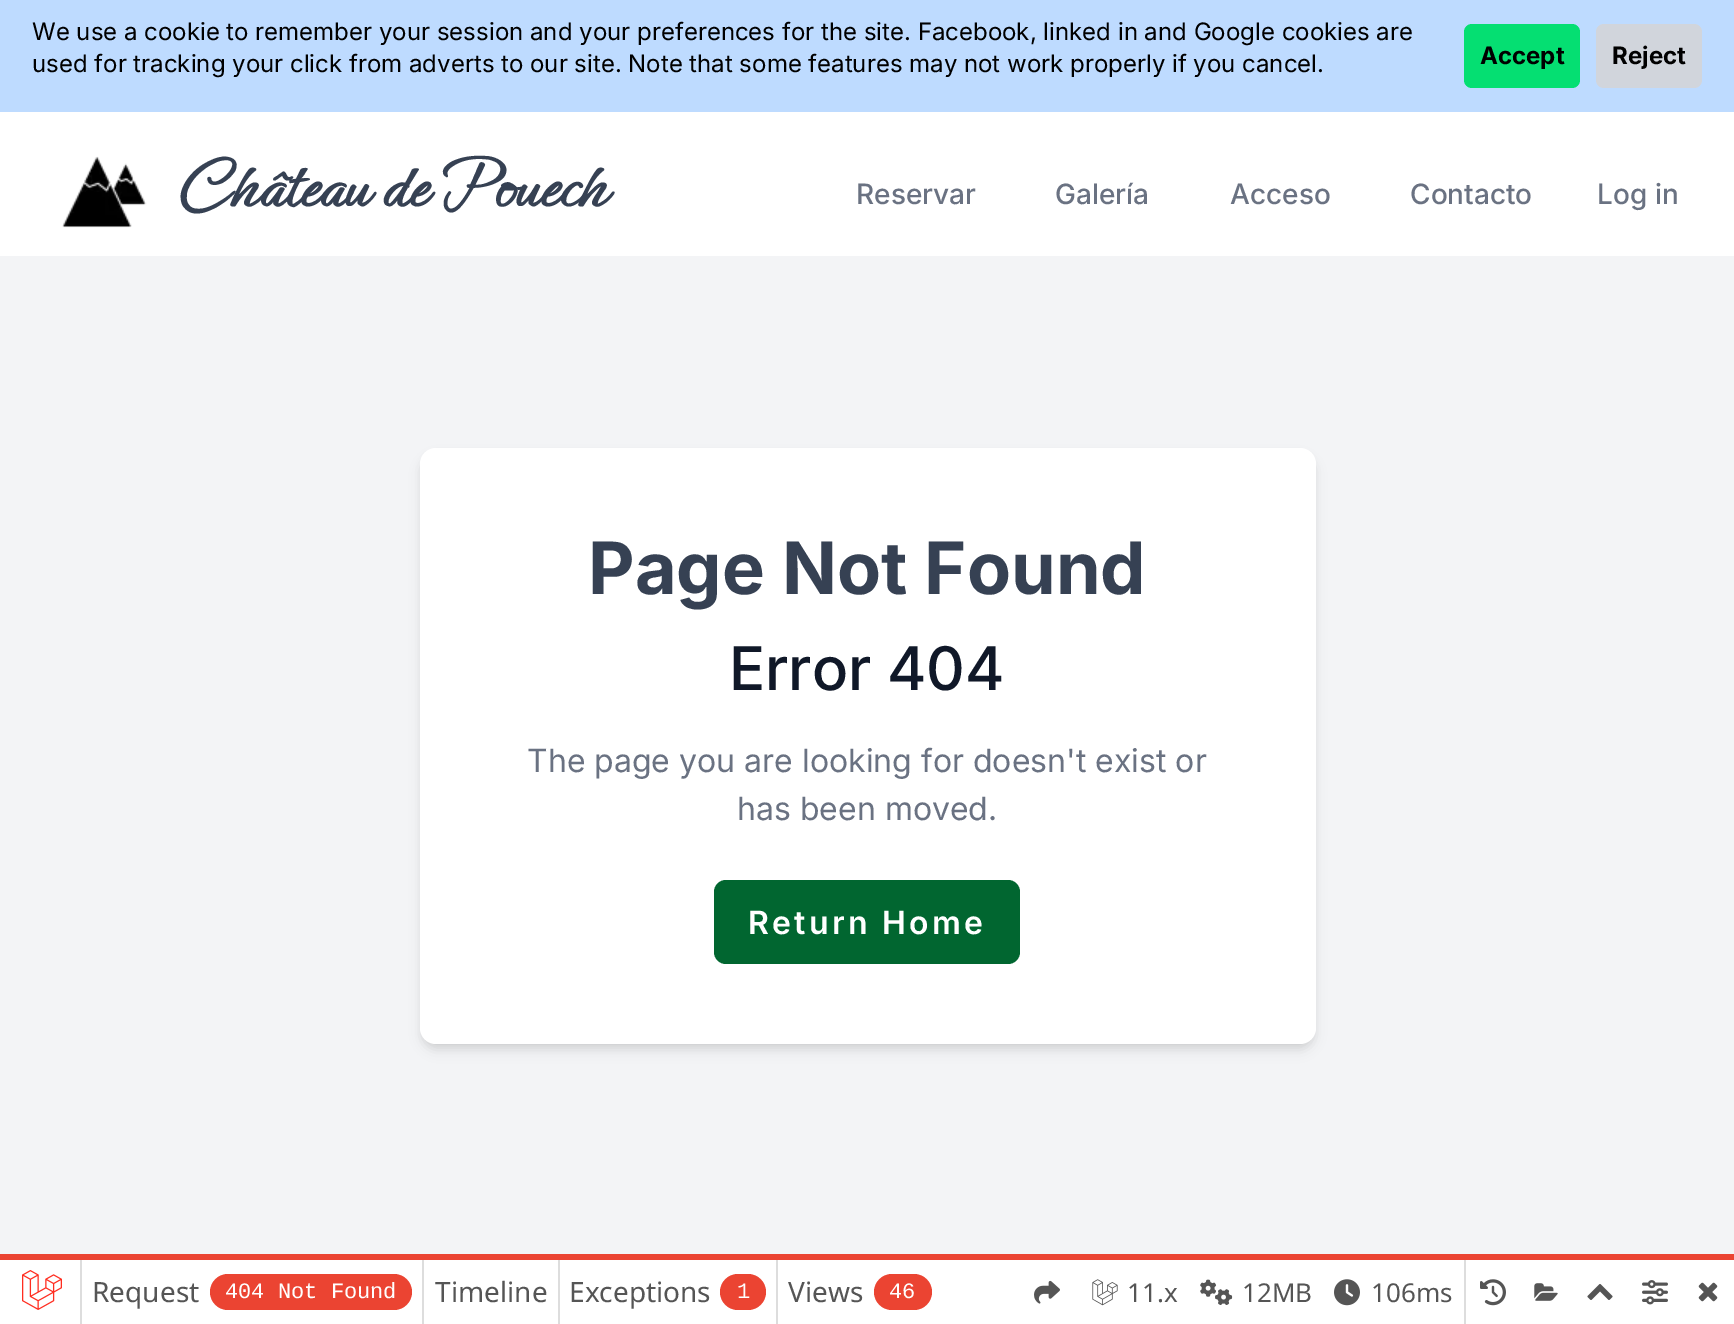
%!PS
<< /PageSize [1734 1324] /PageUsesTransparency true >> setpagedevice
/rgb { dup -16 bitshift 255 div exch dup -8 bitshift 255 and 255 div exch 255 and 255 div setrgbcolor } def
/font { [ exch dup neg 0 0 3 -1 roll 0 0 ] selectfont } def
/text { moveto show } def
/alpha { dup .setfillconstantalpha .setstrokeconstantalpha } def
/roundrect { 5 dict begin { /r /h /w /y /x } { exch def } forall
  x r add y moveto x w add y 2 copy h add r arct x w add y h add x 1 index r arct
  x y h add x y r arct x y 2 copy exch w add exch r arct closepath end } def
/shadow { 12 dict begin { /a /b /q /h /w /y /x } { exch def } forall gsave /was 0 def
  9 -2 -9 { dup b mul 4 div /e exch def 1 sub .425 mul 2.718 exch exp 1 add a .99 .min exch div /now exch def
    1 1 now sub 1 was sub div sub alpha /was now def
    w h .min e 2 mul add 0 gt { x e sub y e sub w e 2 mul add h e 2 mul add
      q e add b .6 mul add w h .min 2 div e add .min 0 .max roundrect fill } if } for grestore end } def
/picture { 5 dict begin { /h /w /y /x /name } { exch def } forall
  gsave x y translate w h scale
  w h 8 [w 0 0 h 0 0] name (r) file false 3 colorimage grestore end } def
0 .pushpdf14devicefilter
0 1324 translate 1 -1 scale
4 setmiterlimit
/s1 { /Inter-Regular 24 font 16#000000 rgb } def
/s2 { /Inter-Bold 24 font 16#000000 rgb } def
/s3 { /Ephesis-Bold 72 font 16#364153 rgb } def
/s4 { /Inter-Medium 28 font 16#6A7282 rgb } def
/s5 { /Inter-Bold 72 font 16#364153 rgb } def
/s6 { /Inter-Medium 60 font 16#101828 rgb } def
/s7 { /Inter-Regular 32 font 16#6A7282 rgb } def
/s8 { /NotoSans-Regular 28 font 16#555555 rgb } def
/s9 { /LiberationMono-Regular 22 font 16#FFFFFF rgb } def
/s10 { /NotoSans-Regular 26 font 16#555555 rgb } def
16#FFFFFF rgb
0 0 1734 1324 rectfill
16#BEDBFF rgb
0 0 1734 112 rectfill
s1
(We use a cookie to remember your session and your preferences for the site. Facebook, linked in and Google cookies are) 32 40 text
(used for tracking your click from adverts to our site. Note that some features may not work properly if you cancel.) 32 72 text
16#05DF72 rgb
1464 24 116 64 8 roundrect fill
s2
(Accept) 1480 64 text
16#D1D5DC rgb
1596 24 106 64 8 roundrect fill
s2
(Reject) 1612 64 text
(pic1.raw) 62 156 85 72 picture
s3
(Château de Pouech) 176 206 text
s4
(Reservar) 856 204 text
(Galería) 1055 204 text
(Acceso) 1230 204 text
(Contacto) 1410 204 text
(Log in) 1597 204 text
16#F3F4F6 rgb
0 256 1734 998 rectfill
16#000000 rgb
424 456 888 588 12 4 0.1 shadow
422 458 892 592 14 6 0.1 shadow
16#FFFFFF rgb
420 448 896 596 16 roundrect fill
s5
(Page Not Found) 588 594 text
s6
(Error 404) 729 690 text
s7
(The page you are looking for doesn't exist or) 527 772 text
(has been moved.) 737 820 text
16#016630 rgb
714 880 306 84 12 roundrect fill
/Inter-SemiBold 32 font
16#FFFFFF rgb
748 934 moveto 3.25 0 (Return Home) ashow
16#EB4432 rgb
0 1254 1734 6 rectfill
(pic2.raw) 22 1270 40 40 picture
16#DDDDDD rgb
80 1260 2 64 rectfill
s8
(Request) 92 1302 text
16#EB4432 rgb
210 1274 202 36 18 roundrect fill
s9
(404 Not Found) 225 1298 text
16#DDDDDD rgb
422 1260 2 64 rectfill
s8
(Timeline) 435 1302 text
16#DDDDDD rgb
558 1260 2 64 rectfill
s8
(Exceptions) 569 1302 text
16#EB4432 rgb
720 1274 46 36 18 roundrect fill
s9
(1) 737 1298 text
16#DDDDDD rgb
776 1260 2 64 rectfill
s8
(Views) 788 1302 text
16#EB4432 rgb
874 1274 58 36 18 roundrect fill
s9
(46) 889 1298 text
(pic3.raw) 1034 1280 26 24 picture
(pic4.raw) 1092 1279 26 27 picture
s10
(11.x) 1127 1302 text
(pic5.raw) 1200 1279 33 26 picture
(12MB) 1242 1302 text
(pic6.raw) 1334 1279 26 27 picture
(106ms) 1371 1302 text
16#DDDDDD rgb
1464 1260 2 64 rectfill
(pic7.raw) 1480 1279 26 27 picture
(pic8.raw) 1534 1283 24 18 picture
(pic9.raw) 1587 1284 26 16 picture
(pic10.raw) 1642 1280 26 25 picture
(pic11.raw) 1698 1282 20 20 picture
.poppdf14devicefilter showpage
